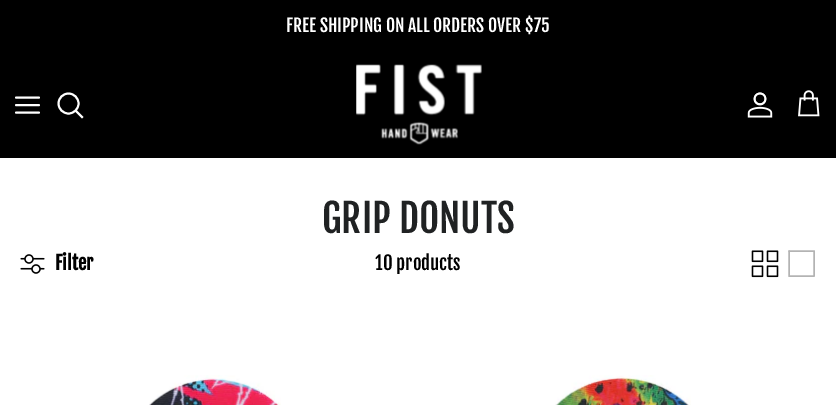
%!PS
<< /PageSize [836 405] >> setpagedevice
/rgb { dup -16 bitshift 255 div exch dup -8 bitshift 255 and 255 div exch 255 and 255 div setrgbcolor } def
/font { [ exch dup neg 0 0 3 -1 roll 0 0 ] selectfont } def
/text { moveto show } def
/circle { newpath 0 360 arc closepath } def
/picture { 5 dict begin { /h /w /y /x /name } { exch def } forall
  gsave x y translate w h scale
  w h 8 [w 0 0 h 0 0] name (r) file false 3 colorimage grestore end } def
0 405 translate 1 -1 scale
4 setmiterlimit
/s1 { /FjallaOne-Regular 17.5 font 16#FFFFFF rgb } def
/s2 { /FjallaOne-Regular 38.75 font 16#202223 rgb } def
/s3 { /FjallaOne-Bold 18.75 font 16#000000 rgb } def
/s4 { /FjallaOne-Regular 18.75 font 16#000000 rgb } def
16#FFFFFF rgb
0 0 836 405 rectfill
16#000000 rgb
0 0 836 158 rectfill
s1
(FREE SHIPPING ON ALL ORDERS OVER $75) 286 32 text
1.9 setlinewidth
1 setlinecap
1 setlinejoin
16 105 moveto 39 105 lineto 16 97.5 moveto 39 97.5 lineto 16 112.5 moveto 39 112.5 lineto stroke
0 setlinecap
0 setlinejoin
68.5 103.5 10 circle stroke
2 setlinecap
76 111 moveto 82 117 lineto stroke
(pic1.raw) 356 64 126 81 picture
(pic2.raw) 747 92 26 26 picture
(pic3.raw) 798 90 22 27 picture
s2
(GRIP DONUTS) 322 233 text
(pic4.raw) 20 254 25 20 picture
s3
(Filter) 55 270 text
s4
(10 products) 375 270 text
(pic5.raw) 751 250 28 28 picture
16#B3B3B3 rgb
1.6 setlinewidth
1 setlinecap
1 setlinejoin
789 251 moveto 814 251 lineto 814 276 lineto 789 276 lineto 789 251 lineto stroke
(pic6.raw) 149 375 132 30 picture
(pic7.raw) 555 375 136 30 picture
showpage
